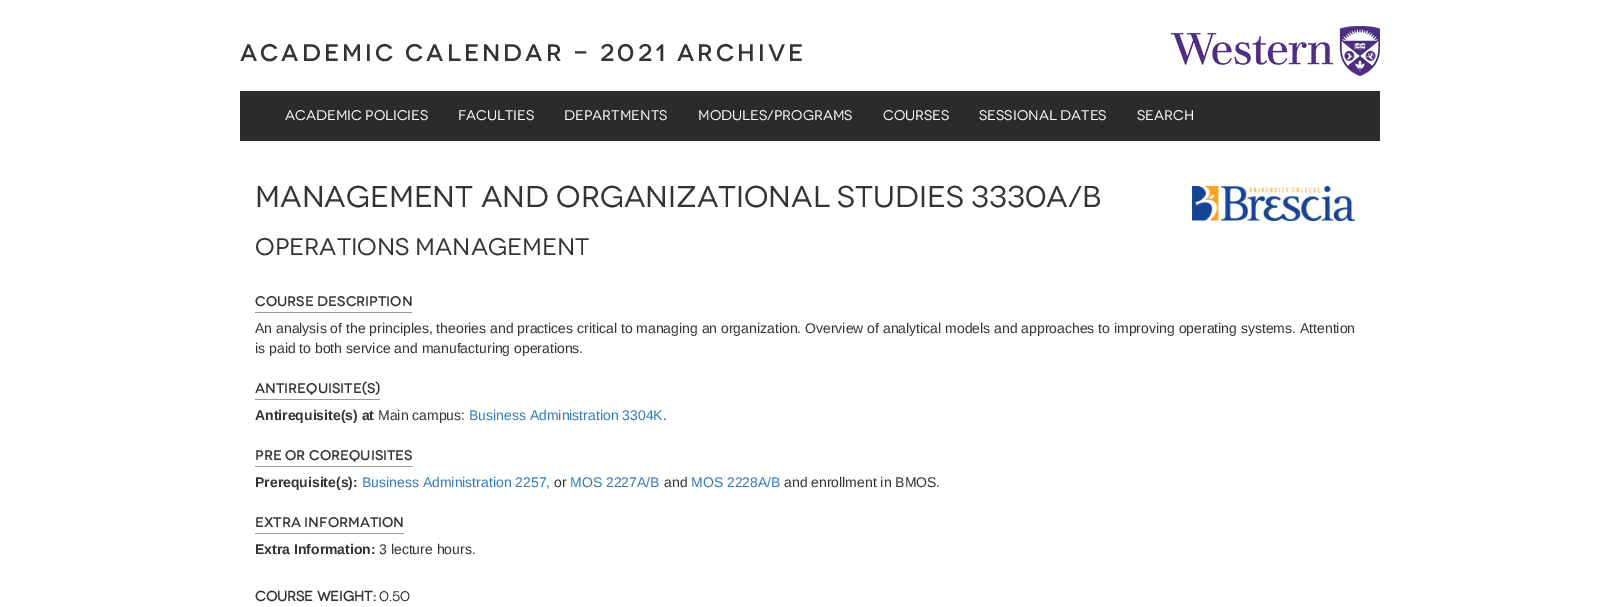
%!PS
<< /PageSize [1620 607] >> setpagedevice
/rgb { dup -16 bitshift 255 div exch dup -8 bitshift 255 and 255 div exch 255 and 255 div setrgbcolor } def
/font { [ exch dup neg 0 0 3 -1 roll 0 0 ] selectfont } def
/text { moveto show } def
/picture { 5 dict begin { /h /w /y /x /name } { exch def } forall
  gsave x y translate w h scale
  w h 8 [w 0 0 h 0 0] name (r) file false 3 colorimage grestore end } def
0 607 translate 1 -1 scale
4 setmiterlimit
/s1 { /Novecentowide-Regular 14 font 16#FFFFFF rgb } def
/s2 { /Novecentowide-Regular 30 font 16#333333 rgb } def
/s3 { /Novecentowide-Regular 24 font 16#333333 rgb } def
/s4 { /Novecentowide-SemiBold 14 font 16#333333 rgb } def
/s5 { /LiberationSans-Regular 14 font 16#333333 rgb } def
/s6 { /LiberationSans-Bold 14 font 16#333333 rgb } def
/s7 { /LiberationSans-Regular 14 font 16#337AB7 rgb } def
/s8 { /Novecentowide-Bold 14 font 16#333333 rgb } def
/s9 { /Novecentowide-Regular 14 font 16#333333 rgb } def
16#FFFFFF rgb
0 0 1620 607 rectfill
/Novecentowide-SemiBold 24 font
16#333333 rgb
240 61 moveto 3 0 (Academic Calendar - 2021 ARCHIVE) ashow
(pic1.raw) 1171 26 209 50 picture
16#2B2B2B rgb
240 91 1140 50 rectfill
s1
(Academic Policies) 285 120 text
(Faculties) 458 120 text
(Departments) 564 120 text
(Modules/Programs) 698 120 text
(Courses) 883 120 text
(Sessional Dates) 979 120 text
(Search) 1137 120 text
s2
(Management and Organizational Studies 3330A/B) 255 207 text
(pic2.raw) 1192 186 163 35 picture
s3
(OPERATIONS MANAGEMENT) 255 255 text
16#999999 rgb
255 312 157 1 rectfill
s4
(Course Description) 255 306 text
s5
(An analysis of the principles, theories and practices critical to managing an organization. Overview of analytical models and approaches to improving operating systems. Attention) 255 333 text
(is paid to both service and manufacturing operations.) 255 353 text
16#999999 rgb
255 399 125 1 rectfill
s4
(Antirequisite\(s\)) 255 393 text
s6
(Antirequisite\(s\) at) 255 420 text
s5
(Main campus:) 378 420 text
s7
(Business Administration 3304K) 469 420 text
s5
(.) 663 420 text
16#999999 rgb
255 466 158 1 rectfill
s4
(Pre or Corequisites) 255 460 text
s6
(Prerequisite\(s\):) 255 487 text
s7
(Business Administration 2257,) 362 487 text
s5
(or) 554 487 text
s7
(MOS 2227A/B) 570 487 text
s5
(and) 664 487 text
s7
(MOS 2228A/B) 691 487 text
s5
(and enrollment in BMOS.) 784 487 text
16#999999 rgb
255 533 149 1 rectfill
s4
(Extra Information) 255 527 text
s6
(Extra Information:) 255 554 text
s5
(3 lecture hours.) 379 554 text
s8
(Course Weight:) 255 601 text
s9
(0.50) 379 601 text
showpage
